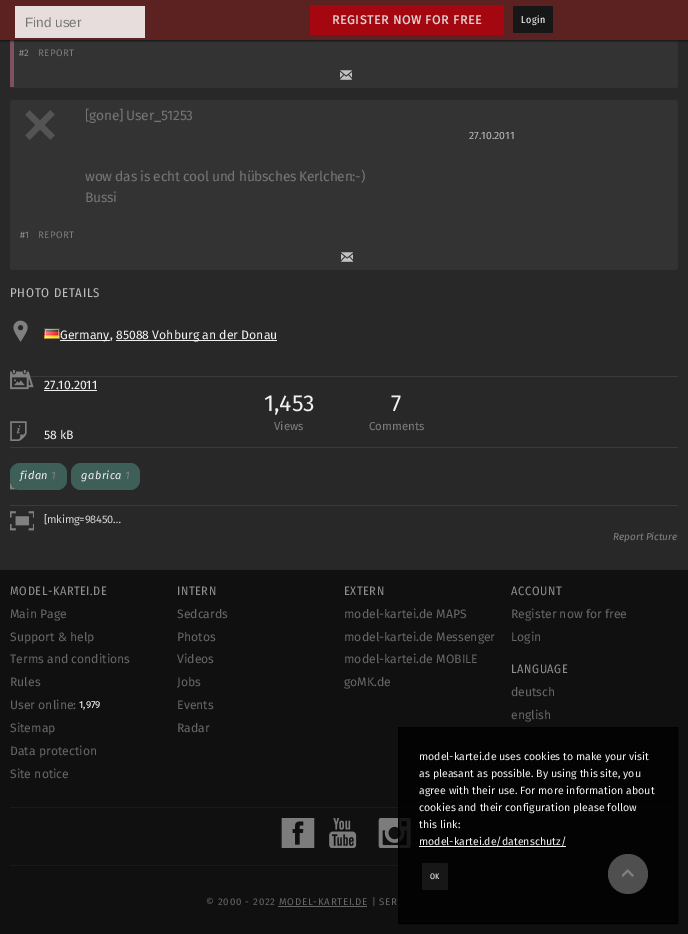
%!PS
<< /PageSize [688 934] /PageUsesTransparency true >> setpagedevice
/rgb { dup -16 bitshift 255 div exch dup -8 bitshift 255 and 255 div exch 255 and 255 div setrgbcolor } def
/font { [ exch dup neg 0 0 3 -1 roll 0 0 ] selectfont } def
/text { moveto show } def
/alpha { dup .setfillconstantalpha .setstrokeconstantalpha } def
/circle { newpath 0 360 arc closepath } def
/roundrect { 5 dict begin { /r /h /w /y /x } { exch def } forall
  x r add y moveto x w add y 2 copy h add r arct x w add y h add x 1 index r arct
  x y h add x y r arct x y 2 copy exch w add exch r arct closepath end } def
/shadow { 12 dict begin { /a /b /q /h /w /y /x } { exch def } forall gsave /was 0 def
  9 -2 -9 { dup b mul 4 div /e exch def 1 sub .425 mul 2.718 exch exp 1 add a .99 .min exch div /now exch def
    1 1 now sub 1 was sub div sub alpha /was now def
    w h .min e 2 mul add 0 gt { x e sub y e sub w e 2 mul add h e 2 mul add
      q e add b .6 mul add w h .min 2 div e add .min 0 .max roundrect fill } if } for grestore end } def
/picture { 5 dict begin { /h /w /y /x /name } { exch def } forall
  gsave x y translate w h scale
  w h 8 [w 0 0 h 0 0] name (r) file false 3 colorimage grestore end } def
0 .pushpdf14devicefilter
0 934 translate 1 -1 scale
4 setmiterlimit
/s1 { /LiberationSans-Regular 13.5 font 16#757575 rgb } def
/s2 { /FiraSans-Regular 9.5 font 16#8E8E8E rgb } def
/s3 { /FiraSans-Regular 10.5 font 16#BDBDBD rgb } def
/s4 { /FiraSans-Regular 12.25 font 16#F1F1F1 rgb } def
/s5 { /FiraSans-Regular 23 font 16#F1F1F1 rgb } def
/s6 { /FiraSans-Regular 11.5 font 16#7E7E7E rgb } def
/s7 { /FiraSans-Italic 10 font 16#858585 rgb } def
/s8 { /FiraSans-Regular 12.2 font 16#666666 rgb } def
/s9 { /FiraSans-Regular 10 font 16#FFFFFF rgb } def
/s10 { /FiraSans-Regular 10.6 font 16#F1F1F1 rgb } def
/s11 { /FiraSansCondensed-Regular 8 font 16#FFFFFF rgb } def
16#101010 rgb
0 0 688 934 rectfill
16#282828 rgb
0 40 688 529 rectfill
16#333333 rgb
10 -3 668 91 3 roundrect fill
16#7E5060 rgb
10 40 4 47 rectfill
16#101010 rgb
0 1 688 40 0 1 1 shadow
16#5C2121 rgb
0 0 688 40 rectfill
16#E7DDDD rgb
15 6 130 32 rectfill
s1
(Find user) 25 27 text
16#A4070F rgb
310 5 194 30 2 roundrect fill
/FiraSans-Bold 12.25 font
16#DED3D3 rgb
332 24 moveto 0.6 0 (REGISTER NOW FOR FREE) ashow
16#171717 rgb
513 6 40 27 1.5 roundrect fill
/FiraSansCondensed-Regular 10 font
16#FFFFFF rgb
521 23 moveto 0.5 0 (Login) ashow
s2
(#2) 19 56 text
16#7E7E7E rgb
38 56 moveto 0.5 0 (REPORT) ashow
(pic1.raw) 340 70 12 10 picture
16#333333 rgb
10 100 668 170 3 roundrect fill
16#323232 rgb
10 268 1 1 rectfill
(pic2.raw) 25 110 30 30 picture
/FiraSans-Regular 13.75 font
16#757575 rgb
85 120 moveto -0.25 0 ([gone] User_51253) ashow
s3
(27.10.2011) 469 139 text
/FiraSans-Regular 13.75 font
16#757575 rgb
85 181 moveto -0.25 0 (wow das is echt cool und hübsches Kerlchen:-\)) ashow
85 202 moveto -0.25 0 (Bussi) ashow
s2
(#1) 20 238 text
16#7E7E7E rgb
38 238 moveto 0.5 0 (REPORT) ashow
(pic1.raw) 341 252 12 10 picture
/FiraSansCondensed-Regular 12.75 font
16#BDBDBD rgb
10 297 moveto 0.75 0 (PHOTO DETAILS) ashow
(pic3.raw) 13 320 15 22 picture
(pic4.raw) 44 328 16 11 picture
16#F1F1F1 rgb
60 340 50 1 rectfill
s4
(Germany) 60 339 text
(,) 110 339 text
116 340 161 1 rectfill
(85088 Vohburg an der Donau) 116 339 text
16#3A3A3A rgb
10 376 668 1 rectfill
(pic5.raw) 10 370 24 20 picture
s4
(27.10.2011) 44 389 text
44 390 53 1 rectfill
(pic6.raw) 10 421 17 20 picture
(58 kB) 44 439 text
(pic7.raw) 10 470 7 20 picture
(pic8.raw) 10 511 24 20 picture
/FiraSans-Regular 11 font
16#D4D4D4 rgb
44 523 moveto -0.25 0 ([mkimg=98450…) ashow
16#3A3A3A rgb
10 447 668 1 rectfill
s5
(1,453) 264 411 text
s6
(Views) 274 430 text
s5
(7) 391 411 text
s6
(Comments) 369 430 text
16#3A3A3A rgb
10 505 668 1 rectfill
16#3D5F57 rgb
10 463 57 27 10 roundrect fill
/FiraSans-Italic 11 font
16#F1F1F1 rgb
20 479 moveto 0.5 0 (fidan) ashow
16#7E7E7E rgb
51 479 moveto 0.5 0 (1) ashow
16#3D5F57 rgb
71 463 69 27 10 roundrect fill
16#F1F1F1 rgb
81 479 moveto 0.5 0 (gabrica) ashow
16#7E7E7E rgb
125 479 moveto 0.5 0 (1) ashow
s7
(Report Picture) 613 540 text
16#272727 rgb
0 569 688 1 rectfill
/FiraSansCondensed-Regular 12.2 font
16#8E8E8E rgb
10 595 moveto 0.6 0 (MODEL-KARTEI.DE) ashow
s8
(Main Page) 10 618 text
(Support & help) 10 641 text
(Terms and conditions) 10 663 text
(Rules) 10 686 text
(User online:) 10 709 text
s9
(1,979) 79 708 text
s8
(Sitemap) 10 732 text
(Data protection) 10 755 text
(Site notice) 10 778 text
/FiraSansCondensed-Regular 12.2 font
16#8E8E8E rgb
177 595 moveto 0.6 0 (INTERN) ashow
s8
(Sedcards) 177 618 text
(Photos) 177 641 text
(Videos) 177 663 text
(Jobs) 177 686 text
(Events) 177 709 text
(Radar) 177 732 text
/FiraSansCondensed-Regular 12.2 font
16#8E8E8E rgb
344 595 moveto 0.6 0 (EXTERN) ashow
s8
(model-kartei.de MAPS) 344 618 text
(model-kartei.de Messenger) 344 641 text
(model-kartei.de MOBILE) 344 663 text
(goMK.de) 344 686 text
/FiraSansCondensed-Regular 12.2 font
16#8E8E8E rgb
511 595 moveto 0.6 0 (ACCOUNT) ashow
s8
(Register now for free) 511 618 text
(Login) 511 641 text
/FiraSansCondensed-Regular 12.2 font
16#8E8E8E rgb
511 673 moveto 0.6 0 (LANGUAGE) ashow
s8
(deutsch) 511 696 text
(english) 511 719 text
16#1A1A1A rgb
10 807 668 1 rectfill
10 865 668 1 rectfill
(pic9.raw) 281 818 34 30 picture
(pic10.raw) 329 818 28 30 picture
(pic11.raw) 378 818 33 30 picture
/FiraSans-Regular 9.75 font
16#666666 rgb
206 905 moveto 0.7 0 (© 2000 - 2022 MODEL-KARTEI.DE | SER) ashow
278 906 89 1 rectfill
0.8 alpha
16#000000 rgb
398.5 727.5 moveto 677.5 727.5 lineto 677.5 923.5 lineto 398.5 923.5 lineto closepath fill
1 alpha
398.5 727.5 moveto 677.5 727.5 lineto 677.5 923.5 lineto 398.5 923.5 lineto closepath stroke
s10
(model-kartei.de uses cookies to make your visit) 419 760 text
(as pleasant as possible. By using this site, you) 419 777 text
(agree with their use. For more information about) 419 794 text
(cookies and their configuration please follow) 419 811 text
(this link:) 419 828 text
419 846 147 1 rectfill
(model-kartei.de/datenschutz/) 419 845 text
16#171717 rgb
422 863 26 27 1.5 roundrect fill
s11
(OK) 430 879 text
16#4F4F4F rgb
628 874 20 circle fill
(pic12.raw) 622 869 12 8 picture
.poppdf14devicefilter showpage
